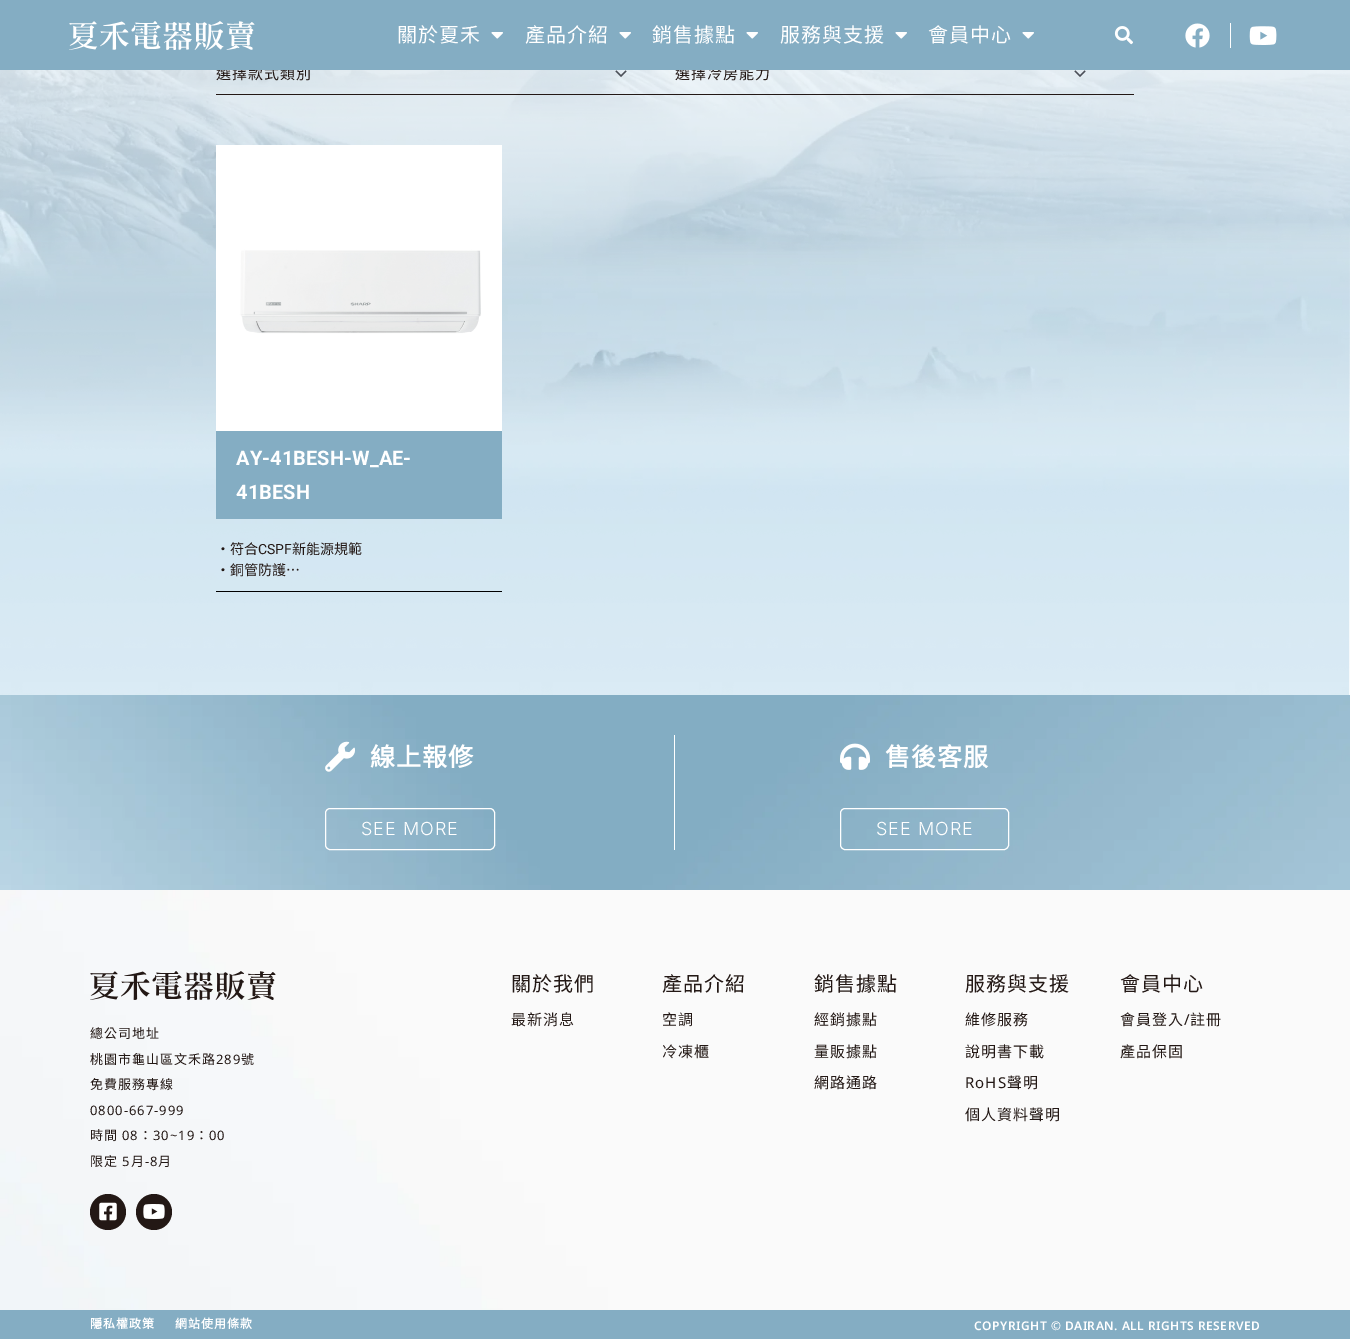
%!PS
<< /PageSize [1350 1339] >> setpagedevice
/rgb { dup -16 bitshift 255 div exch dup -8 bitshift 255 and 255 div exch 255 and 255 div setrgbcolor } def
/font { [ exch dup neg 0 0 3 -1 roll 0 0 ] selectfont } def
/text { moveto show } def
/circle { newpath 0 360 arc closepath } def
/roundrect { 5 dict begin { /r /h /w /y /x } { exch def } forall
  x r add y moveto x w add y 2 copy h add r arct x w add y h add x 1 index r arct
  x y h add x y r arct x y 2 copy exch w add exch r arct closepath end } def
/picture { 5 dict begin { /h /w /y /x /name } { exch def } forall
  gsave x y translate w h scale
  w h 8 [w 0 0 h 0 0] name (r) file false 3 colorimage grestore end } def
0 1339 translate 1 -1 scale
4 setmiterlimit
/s1 { /NotoSansCJKTC-Regular 14 font 16#231815 rgb } def
/s2 { /Roboto-Regular 14 font 16#231815 rgb } def
16#FFFFFF rgb
0 0 1350 1339 rectfill
(pic6.raw) 0 70 1350 625 picture
/NotoSansCJKTC-Regular 15 font
16#231815 rgb
216 79 moveto 1 0 (選擇款式類別) ashow
675 79 moveto 1 0 (選擇冷房能力) ashow
16#84ADC3 rgb
0 0 1350 70 rectfill
(pic1.raw) 69 21 186 29 picture
/NotoSansCJKTC-Regular 20 font
16#FFFFFF rgb
397 42 moveto 1 0 (關於夏禾) ashow
(pic2.raw) 491 32 12 7 picture
525 42 moveto 1 0 (產品介紹) ashow
(pic2.raw) 619 32 12 7 picture
652 42 moveto 1 0 (銷售據點) ashow
(pic2.raw) 746 32 12 7 picture
780 42 moveto 1 0 (服務與支援) ashow
(pic2.raw) 895 32 12 7 picture
928 42 moveto 1 0 (會員中心) ashow
(pic2.raw) 1022 32 12 7 picture
(pic3.raw) 1114 26 19 19 picture
(pic4.raw) 1185 23 25 25 picture
1230 23 1 25 rectfill
(pic5.raw) 1249 26 28 19 picture
16#231815 rgb
216 94 918 1 rectfill
(pic7.raw) 615 70 12 7 picture
(pic8.raw) 1074 70 12 7 picture
(pic9.raw) 216 145 286 286 picture
16#84ADC3 rgb
216 431 286 88 rectfill
/Roboto-Bold 20 font
16#FFFFFF rgb
236 465 moveto 0.1 0 (AY-41BESH-W_AE-) ashow
236 499 moveto 0.1 0 (41BESH) ashow
s1
(・符合) 216 554 text
s2
(CSPF) 258 554 text
s1
(新能源規範) 292 554 text
(・銅管防護…) 216 575 text
16#000000 rgb
216 591 286 1 rectfill
(pic10.raw) 0 695 1350 195 picture
16#FFFFFF rgb
674 735 1 115 rectfill
(pic11.raw) 325 741 30 31 picture
/NotoSansCJKTC-Bold 25 font
370 766 moveto 1 0 (線上報修) ashow
325.5 808.5 169 41 4.5 roundrect stroke
/Inter-Light 18 font
361 835 moveto 1 0 (SEE MORE) ashow
(pic12.raw) 840 743 30 27 picture
/NotoSansCJKTC-Bold 25 font
885 766 moveto 1 0 (售後客服) ashow
840.5 808.5 168 41 4.5 roundrect stroke
/Inter-Light 18 font
876 835 moveto 1 0 (SEE MORE) ashow
(pic13.raw) 0 890 1350 420 picture
/NotoSansCJKTC-Regular 20 font
16#231815 rgb
511 991 moveto 1 0 (關於我們) ashow
/NotoSansCJKTC-Regular 15 font
511 1025 moveto 1 0 (最新消息) ashow
/NotoSansCJKTC-Regular 20 font
662 991 moveto 1 0 (產品介紹) ashow
/NotoSansCJKTC-Regular 15 font
662 1025 moveto 1 0 (空調) ashow
662 1057 moveto 1 0 (冷凍櫃) ashow
/NotoSansCJKTC-Regular 20 font
814 991 moveto 1 0 (銷售據點) ashow
/NotoSansCJKTC-Regular 15 font
814 1025 moveto 1 0 (經銷據點) ashow
814 1057 moveto 1 0 (量販據點) ashow
814 1088 moveto 1 0 (網路通路) ashow
/NotoSansCJKTC-Regular 20 font
965 991 moveto 1 0 (服務與支援) ashow
/NotoSansCJKTC-Regular 15 font
965 1025 moveto 1 0 (維修服務) ashow
965 1057 moveto 1 0 (說明書下載) ashow
/NotoSans-Regular 15 font
965 1088 moveto 1 0 (RoHS) ashow
/NotoSansCJKTC-Regular 15 font
1007 1088 moveto 1 0 (聲明) ashow
965 1120 moveto 1 0 (個人資料聲明) ashow
/NotoSansCJKTC-Regular 20 font
1120 991 moveto 1 0 (會員中心) ashow
/NotoSansCJKTC-Regular 15 font
1120 1025 moveto 1 0 (會員登入) ashow
/NotoSans-Regular 15 font
1184 1025 moveto 1 0 (/) ashow
/NotoSansCJKTC-Regular 15 font
1190 1025 moveto 1 0 (註冊) ashow
1120 1057 moveto 1 0 (產品保固) ashow
(pic14.raw) 90 971 186 29 picture
/NotoSansCJKTC-Regular 13 font
90 1038 moveto 1 0 (總公司地址) ashow
90 1064 moveto 1 0 (桃園市龜山區文禾路) ashow
/NotoSans-Regular 13 font
216 1064 moveto 1 0 (289) ashow
/NotoSansCJKTC-Regular 13 font
241 1064 moveto 1 0 (號) ashow
90 1089 moveto 1 0 (免費服務專線) ashow
/NotoSans-Regular 13 font
90 1115 moveto 1 0 (0800-667-999) ashow
/NotoSansCJKTC-Regular 13 font
90 1140 moveto 1 0 (時間) ashow
/NotoSans-Regular 13 font
122 1140 moveto 1 0 (08) ashow
/NotoSansCJKTC-Regular 13 font
139 1140 moveto 1 0 (：) ashow
/NotoSans-Regular 13 font
153 1140 moveto 1 0 (30~19) ashow
/NotoSansCJKTC-Regular 13 font
195 1140 moveto 1 0 (：) ashow
/NotoSans-Regular 13 font
209 1140 moveto 1 0 (00) ashow
/NotoSansCJKTC-Regular 13 font
90 1166 moveto 1 0 (限定) ashow
/NotoSans-Regular 13 font
122 1166 moveto 1 0 (5) ashow
/NotoSansCJKTC-Regular 13 font
131 1166 moveto 1 0 (月) ashow
/NotoSans-Regular 13 font
145 1166 moveto 1 0 (-8) ashow
/NotoSansCJKTC-Regular 13 font
158 1166 moveto 1 0 (月) ashow
108 1212 18 circle fill
(pic15.raw) 99 1202 18 19 picture
154 1212 18 circle fill
(pic16.raw) 143 1204 22 15 picture
16#84ADC3 rgb
0 1310 1350 29 rectfill
/NotoSansCJKTC-Bold 12 font
16#FFFFFF rgb
90 1328 moveto 1 0 (隱私權政策) ashow
175 1328 moveto 1 0 (網站使用條款) ashow
/NotoSans-SemiBold 12 font
974 1330 moveto 0.5 0 (COPYRIGHT © DAIRAN. ALL RIGHTS RESERVED) ashow
showpage
